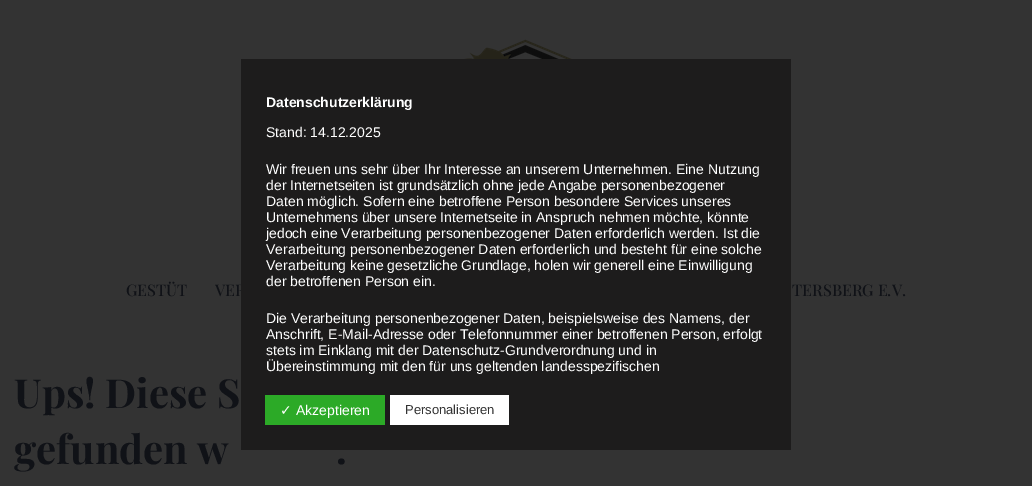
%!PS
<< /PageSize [1032 486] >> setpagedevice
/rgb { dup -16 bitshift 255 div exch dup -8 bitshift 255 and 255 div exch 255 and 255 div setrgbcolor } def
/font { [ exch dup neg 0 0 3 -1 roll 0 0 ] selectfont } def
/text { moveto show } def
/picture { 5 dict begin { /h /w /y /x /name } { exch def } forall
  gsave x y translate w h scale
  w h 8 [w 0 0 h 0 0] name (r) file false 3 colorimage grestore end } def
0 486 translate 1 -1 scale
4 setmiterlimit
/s1 { /PlayfairDisplay-Medium 16 font 16#101217 rgb } def
/s2 { /LiberationSans-Bold 14 font 16#FFFFFF rgb } def
/s3 { /LiberationSans-Regular 14 font 16#FFFFFF rgb } def
/s4 { /DejaVuSans-Regular 14 font 16#FFFFFF rgb } def
/s5 { /LiberationSans-Regular 13 font 16#333333 rgb } def
/s6 { /PlayfairDisplay-Bold 40 font 16#101217 rgb } def
16#333333 rgb
0 0 1032 486 rectfill
s1
(VER) 215 296 text
16#1D1C1C rgb
241 59 550 391 rectfill
s2
(Datenschutzerklärung) 266 107 text
s3
(Stand: 14.12.2025) 266 137 text
(Wir freuen uns sehr über Ihr Interesse an unserem Unternehmen. Eine Nutzung) 266 174 text
(der Internetseiten ist grundsätzlich ohne jede Angabe personenbezogener) 266 190 text
(Daten möglich. Sofern eine betroffene Person besondere Services unseres) 266 206 text
(Unternehmens über unsere Internetseite in Anspruch nehmen möchte, könnte) 266 222 text
(jedoch eine Verarbeitung personenbezogener Daten erforderlich werden. Ist die) 266 238 text
(Verarbeitung personenbezogener Daten erforderlich und besteht für eine solche) 266 254 text
(Verarbeitung keine gesetzliche Grundlage, holen wir generell eine Einwilligung) 266 270 text
(der betroffenen Person ein.) 266 286 text
(Die Verarbeitung personenbezogener Daten, beispielsweise des Namens, der) 266 323 text
(Anschrift, E-Mail-Adresse oder Telefonnummer einer betroffenen Person, erfolgt) 266 339 text
(stets im Einklang mit der Datenschutz-Grundverordnung und in) 266 355 text
(Übereinstimmung mit den für uns geltenden landesspezifischen) 266 371 text
16#2CAA27 rgb
265 395 120 30 rectfill
s4
(✓) 280 415 text
s3
(Akzeptieren) 296 415 text
390 395 119 30 rectfill
s5
(Personalisieren) 405 414 text
(pic1.raw) 464 39 108 20 picture
s1
(GESTÜT) 126 296 text
(TERSBERG E.V.) 792 296 text
s6
(Ups! Diese S) 14 408 text
(gefunden w) 14 464 text
(.) 336 464 text
showpage
